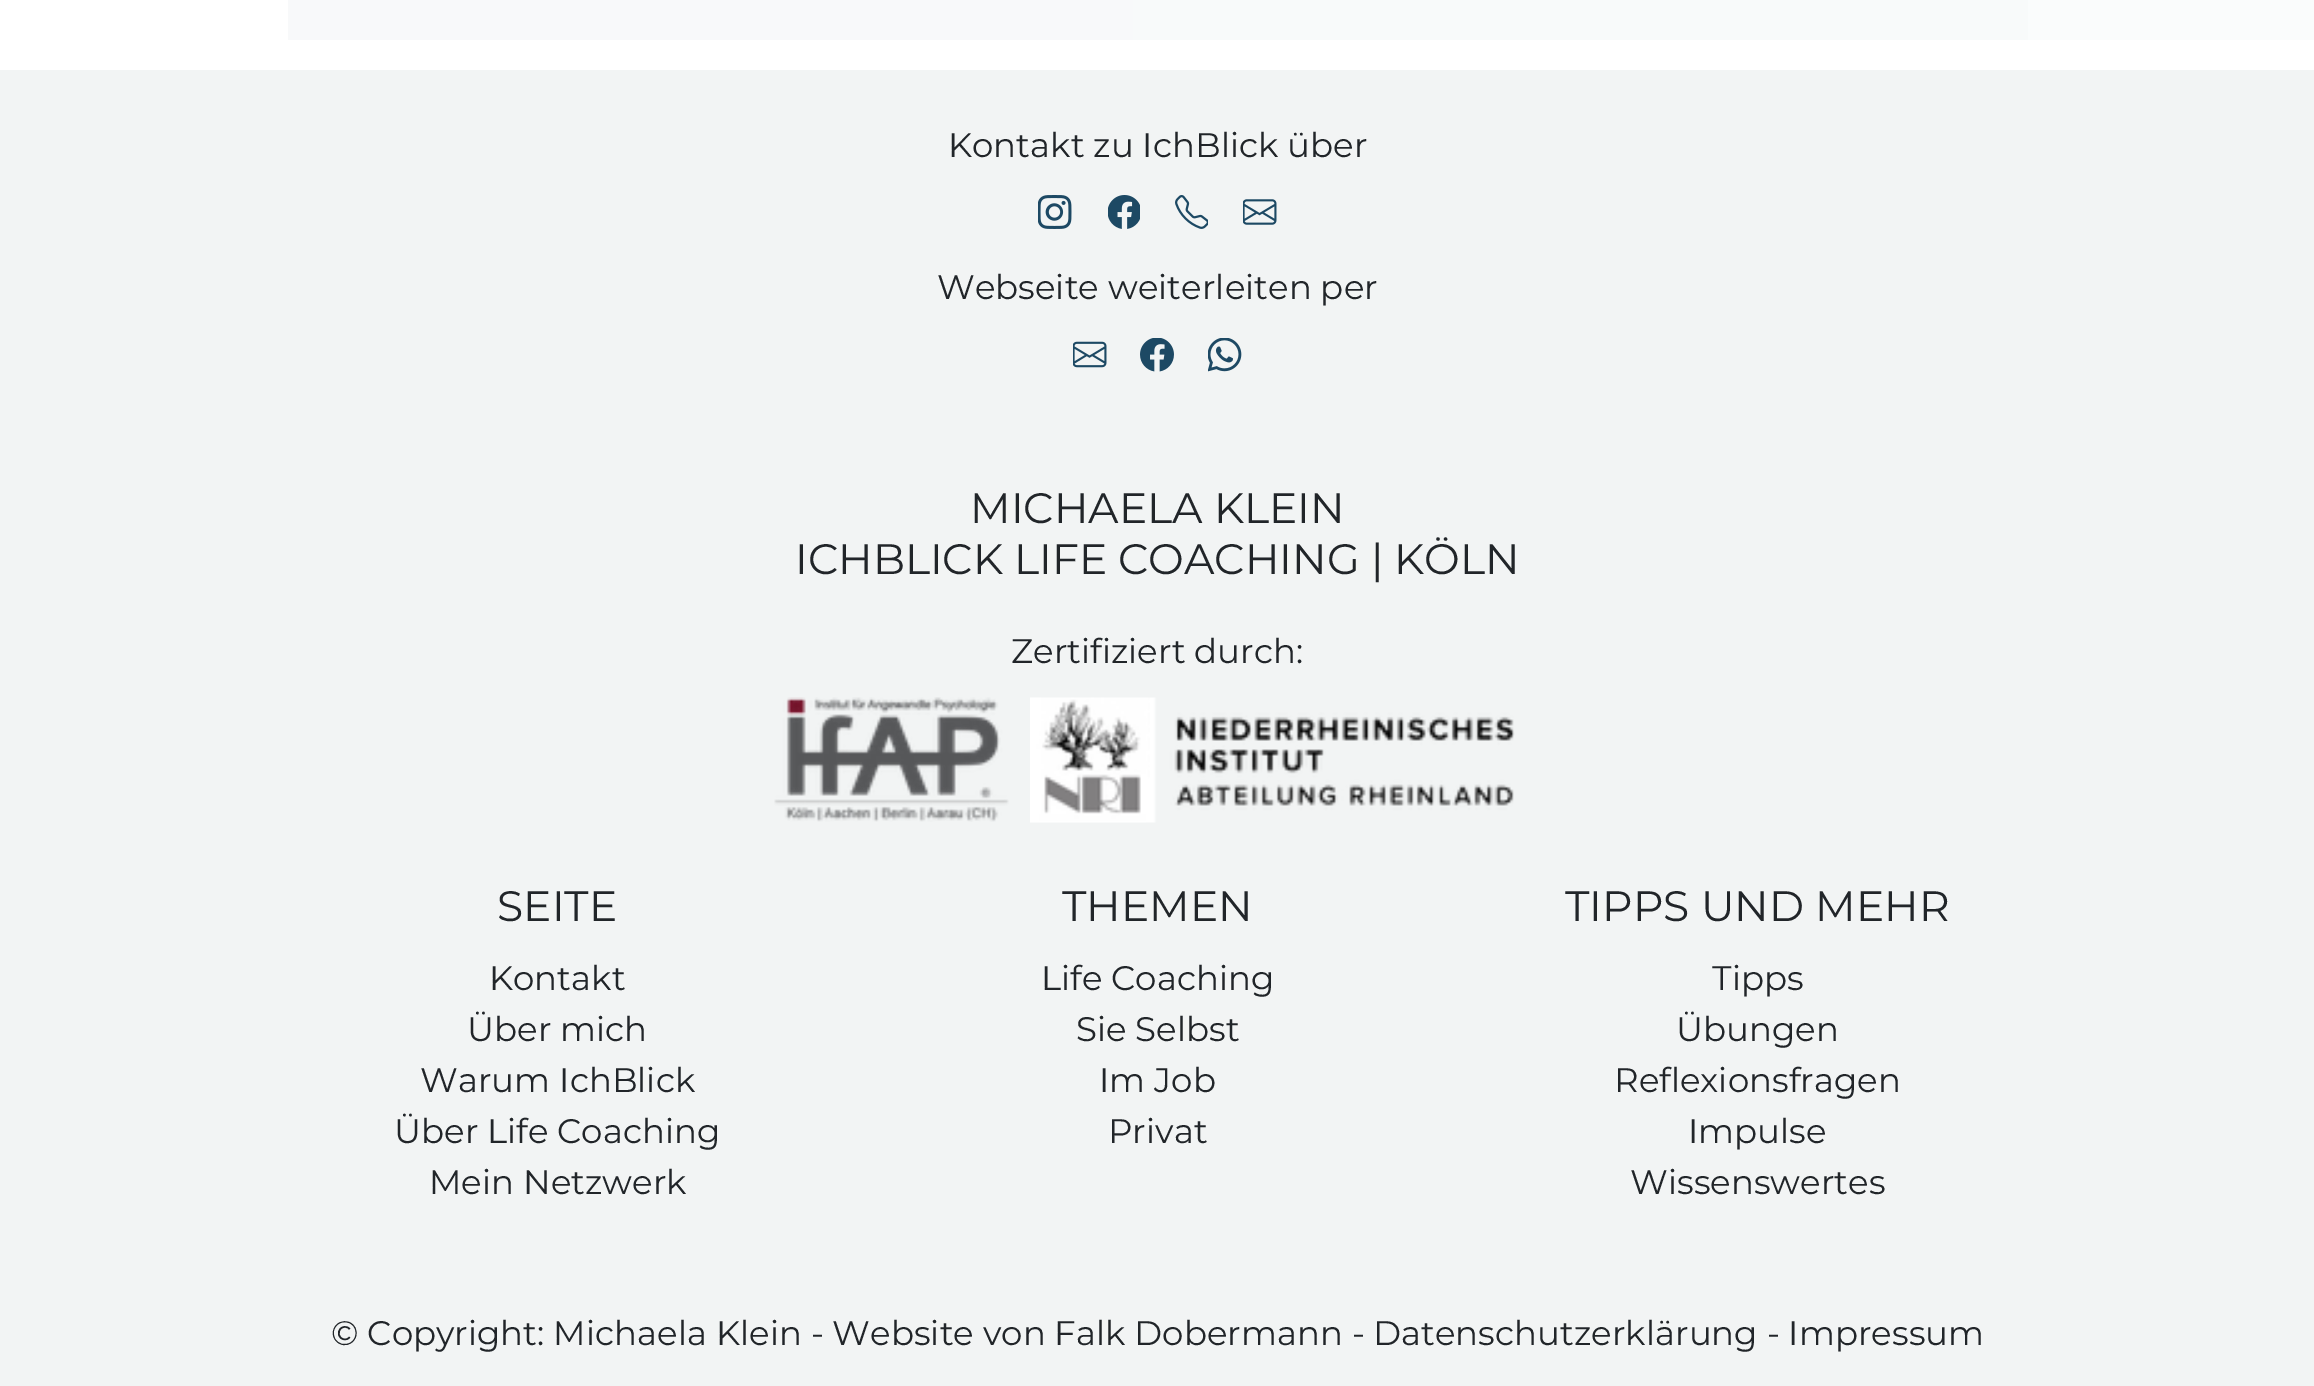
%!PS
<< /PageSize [2314 1386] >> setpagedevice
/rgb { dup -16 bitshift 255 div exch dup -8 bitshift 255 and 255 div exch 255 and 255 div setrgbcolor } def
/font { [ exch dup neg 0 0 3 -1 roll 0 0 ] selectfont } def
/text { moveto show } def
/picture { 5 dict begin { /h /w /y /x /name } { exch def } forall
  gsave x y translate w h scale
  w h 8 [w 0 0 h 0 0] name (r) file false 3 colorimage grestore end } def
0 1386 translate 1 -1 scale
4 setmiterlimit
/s1 { /Montserrat-Regular 34 font 16#212529 rgb } def
/s2 { /Montserrat-Regular 42.5 font 16#212529 rgb } def
16#FFFFFF rgb
0 0 2314 1386 rectfill
16#FAFCFC rgb
2028 0 286 40 rectfill
16#F8F9FA rgb
288 0 845 40 rectfill
16#F8FAFA rgb
1133 0 895 40 rectfill
16#F2F4F4 rgb
0 70 2314 1316 rectfill
s1
(Kontakt zu IchBlick über) 948 157 text
(pic1.raw) 1038 195 34 34 picture
(pic2.raw) 1108 195 32 34 picture
(pic3.raw) 1175 195 33 34 picture
(pic4.raw) 1243 199 34 26 picture
(Webseite weiterleiten per) 937 299 text
(pic5.raw) 1073 341 34 27 picture
(pic6.raw) 1140 338 34 34 picture
(pic7.raw) 1208 338 34 34 picture
s2
(MICHAELA KLEIN) 970 523 text
(ICHBLICK LIFE COACHING | KÖLN) 795 574 text
s1
(Zertifiziert durch:) 1011 663 text
(pic8.raw) 774 697 235 125 picture
(pic9.raw) 1030 697 485 126 picture
s2
(SEITE) 497 921 text
s1
(Kontakt) 489 990 text
(Über mich) 467 1041 text
(Warum IchBlick) 420 1092 text
(Über Life Coaching) 394 1143 text
(Mein Netzwerk) 429 1194 text
s2
(THEMEN) 1062 921 text
s1
(Life Coaching) 1041 990 text
(Sie Selbst) 1076 1041 text
(Im Job) 1099 1092 text
(Privat) 1108 1143 text
s2
(TIPPS UND MEHR) 1565 921 text
s1
(Tipps) 1712 990 text
(Übungen) 1676 1041 text
(Reflexionsfragen) 1614 1092 text
(Impulse) 1688 1143 text
(Wissenswertes) 1630 1194 text
(© Copyright: Michaela Klein - Website von Falk Dobermann -) 331 1345 text
(Datenschutzerklärung - Impressum) 1373 1345 text
showpage
